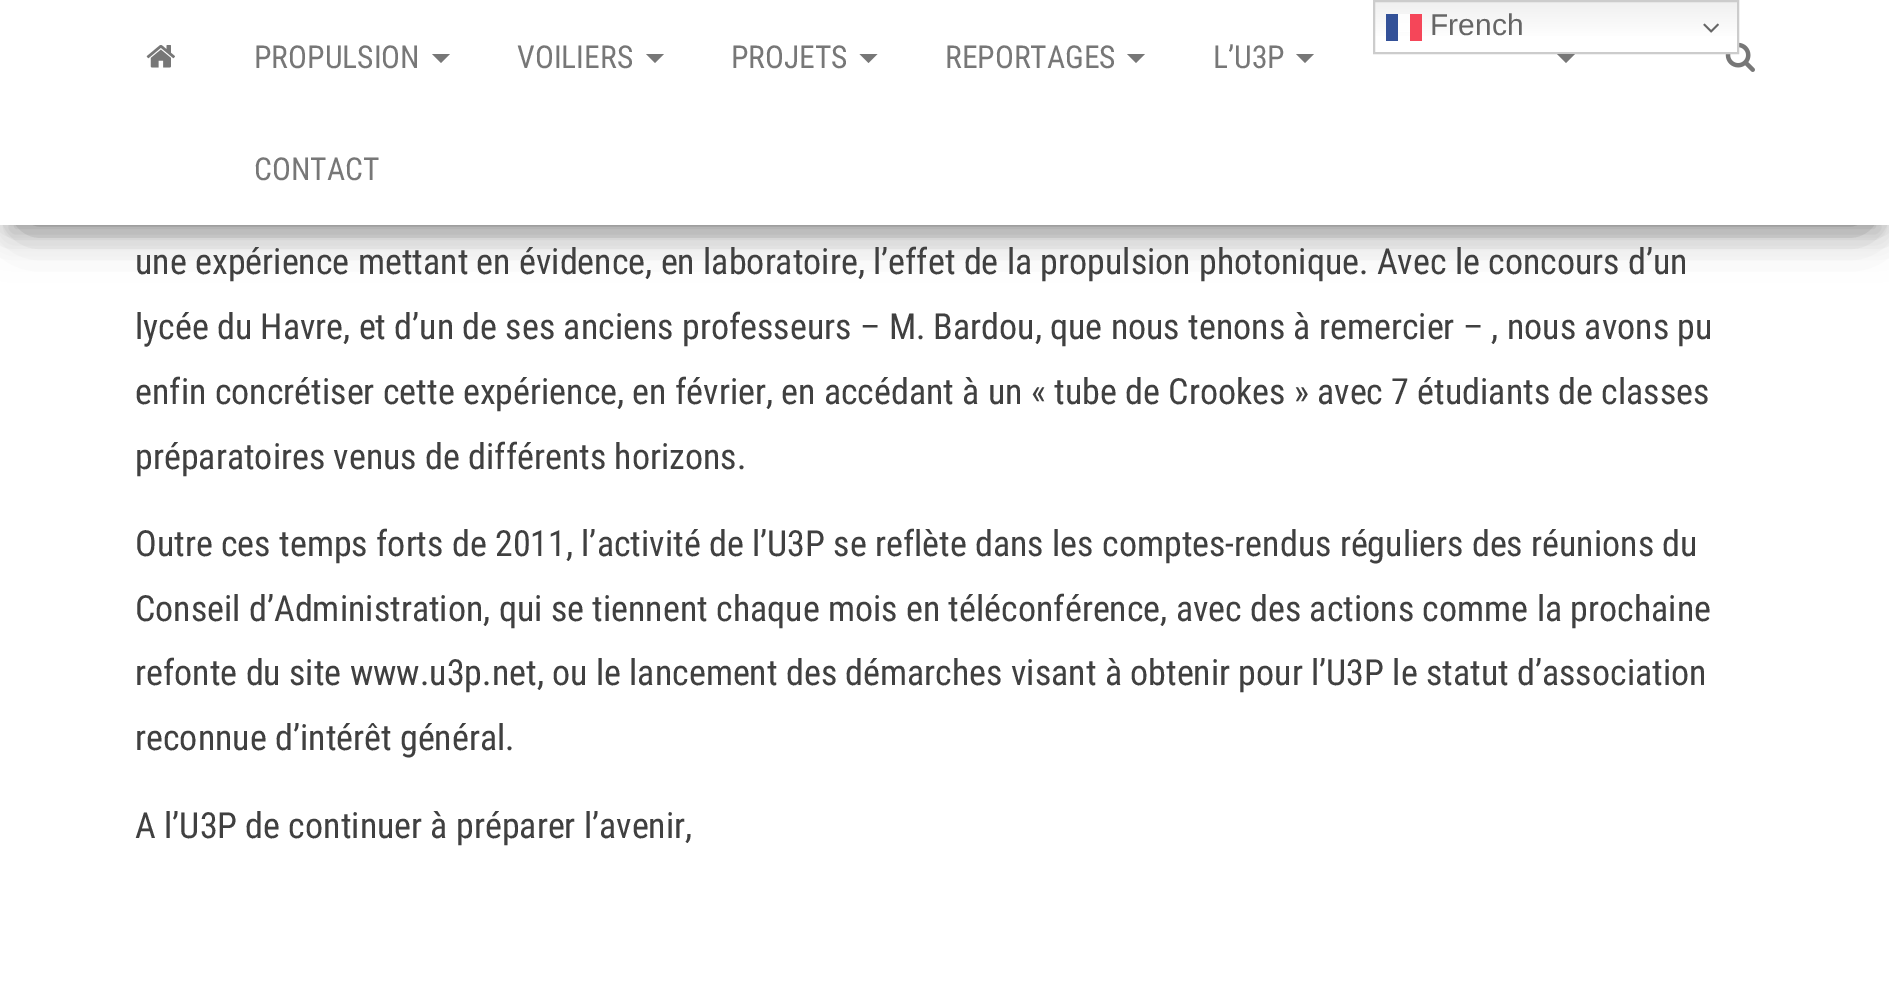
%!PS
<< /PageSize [1889 989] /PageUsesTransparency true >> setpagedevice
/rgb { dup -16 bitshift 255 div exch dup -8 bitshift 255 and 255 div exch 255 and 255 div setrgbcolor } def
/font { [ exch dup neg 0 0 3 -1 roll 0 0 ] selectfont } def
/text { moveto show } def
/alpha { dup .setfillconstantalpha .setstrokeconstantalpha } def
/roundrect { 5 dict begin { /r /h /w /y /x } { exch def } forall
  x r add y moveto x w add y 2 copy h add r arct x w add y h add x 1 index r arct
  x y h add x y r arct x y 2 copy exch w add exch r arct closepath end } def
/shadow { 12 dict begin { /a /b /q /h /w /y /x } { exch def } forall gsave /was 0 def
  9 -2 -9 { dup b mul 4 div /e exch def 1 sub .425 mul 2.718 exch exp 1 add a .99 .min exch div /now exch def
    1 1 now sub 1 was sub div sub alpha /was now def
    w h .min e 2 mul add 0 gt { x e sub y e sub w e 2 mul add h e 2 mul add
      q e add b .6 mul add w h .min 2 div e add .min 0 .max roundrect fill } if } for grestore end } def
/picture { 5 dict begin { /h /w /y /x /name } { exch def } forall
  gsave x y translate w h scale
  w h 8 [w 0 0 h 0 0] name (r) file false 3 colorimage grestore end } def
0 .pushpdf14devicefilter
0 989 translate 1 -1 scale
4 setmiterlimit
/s1 { /LiberationSans-Regular 30 font 16#666666 rgb } def
/s2 { /RobotoCondensed-Regular 31.5 font 16#777777 rgb } def
/s3 { /RobotoCondensed-Regular 36 font 16#404040 rgb } def
16#FFFFFF rgb
0 0 1889 989 rectfill
16#000000 rgb
11 29 1868 203 0 11 0.2 shadow
0 7 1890 225 0 22.5 0.12 shadow
27 50 1836 171 0 22.5 0.42 shadow
16#FFFFFF rgb
0 0 1889 225 rectfill
(pic3.raw) 1725 42 30 30 picture
gsave 1375 2 moveto 1737 2 lineto 1737 52 lineto 1375 52 lineto closepath clip newpath
<< /ShadingType 2 /ColorSpace /DeviceRGB /Coords [1556 0 1556 54] /Extend [true true] /Function << /FunctionType 3 /Domain [0 1] /Functions [<< /FunctionType 2 /Domain [0 1] /C0 [0.937 0.937 0.937] /C1 [1 1 1] /N 1 >> << /FunctionType 2 /Domain [0 1] /C0 [1 1 1] /C1 [1 1 1] /N 1 >>] /Bounds [0.7] /Encode [0 1 0 1] >> >> shfill grestore
gsave 1398 14 moveto 1410 14 lineto 1410 32 lineto 1398 32 lineto closepath clip newpath
<< /ShadingType 2 /ColorSpace /DeviceRGB /Coords [1556 0 1556 54] /Extend [true true] /Function << /FunctionType 3 /Domain [0 1] /Functions [<< /FunctionType 2 /Domain [0 1] /C0 [0.988 0.988 0.988] /C1 [1 1 1] /N 1 >> << /FunctionType 2 /Domain [0 1] /C0 [1 1 1] /C1 [1 1 1] /N 1 >>] /Bounds [0.7] /Encode [0 1 0 1] >> >> shfill grestore
16#CCCCCC rgb
2 setlinewidth
1374 1 364 52 rectstroke
16#335198 rgb
1386 14 12 27 rectfill
16#F54659 rgb
1410 14 12 27 rectfill
s1
(French) 1430 35 text
(pic1.raw) 1703 23 16 10 picture
(pic2.raw) 146 45 29 23 picture
s2
(PROPULSION) 254 68 text
432 54 moveto 450 54 lineto 441 63 lineto closepath fill
(VOILIERS) 517 68 text
646 54 moveto 664 54 lineto 655 63 lineto closepath fill
(PROJETS) 731 68 text
859.5 54 moveto 877.5 54 lineto 868.5 63 lineto closepath fill
(REPORTAGES) 945 68 text
1127 54 moveto 1145 54 lineto 1136 63 lineto closepath fill
(L’U3P) 1213 68 text
1296 54 moveto 1314 54 lineto 1305 63 lineto closepath fill
1557 54 moveto 1575 54 lineto 1566 63 lineto closepath fill
(CONTACT) 254 180 text
s3
(une expérience mettant en évidence, en laboratoire, l’effet de la propulsion photonique. Avec le concours d’un) 135 274 text
(lycée du Havre, et d’un de ses anciens professeurs – M. Bardou, que nous tenons à remercier – , nous avons pu) 135 339 text
(enfin concrétiser cette expérience, en février, en accédant à un « tube de Crookes » avec 7 étudiants de classes) 135 404 text
(préparatoires venus de différents horizons.) 135 469 text
(Outre ces temps forts de 2011, l’activité de l’U3P se reflète dans les comptes-rendus réguliers des réunions du) 135 556 text
(Conseil d’Administration, qui se tiennent chaque mois en téléconférence, avec des actions comme la prochaine) 135 621 text
(refonte du site www.u3p.net, ou le lancement des démarches visant à obtenir pour l’U3P le statut d’association) 135 685 text
(reconnue d’intérêt général.) 135 750 text
(A l’U3P de continuer à préparer l’avenir,) 135 838 text
.poppdf14devicefilter showpage
